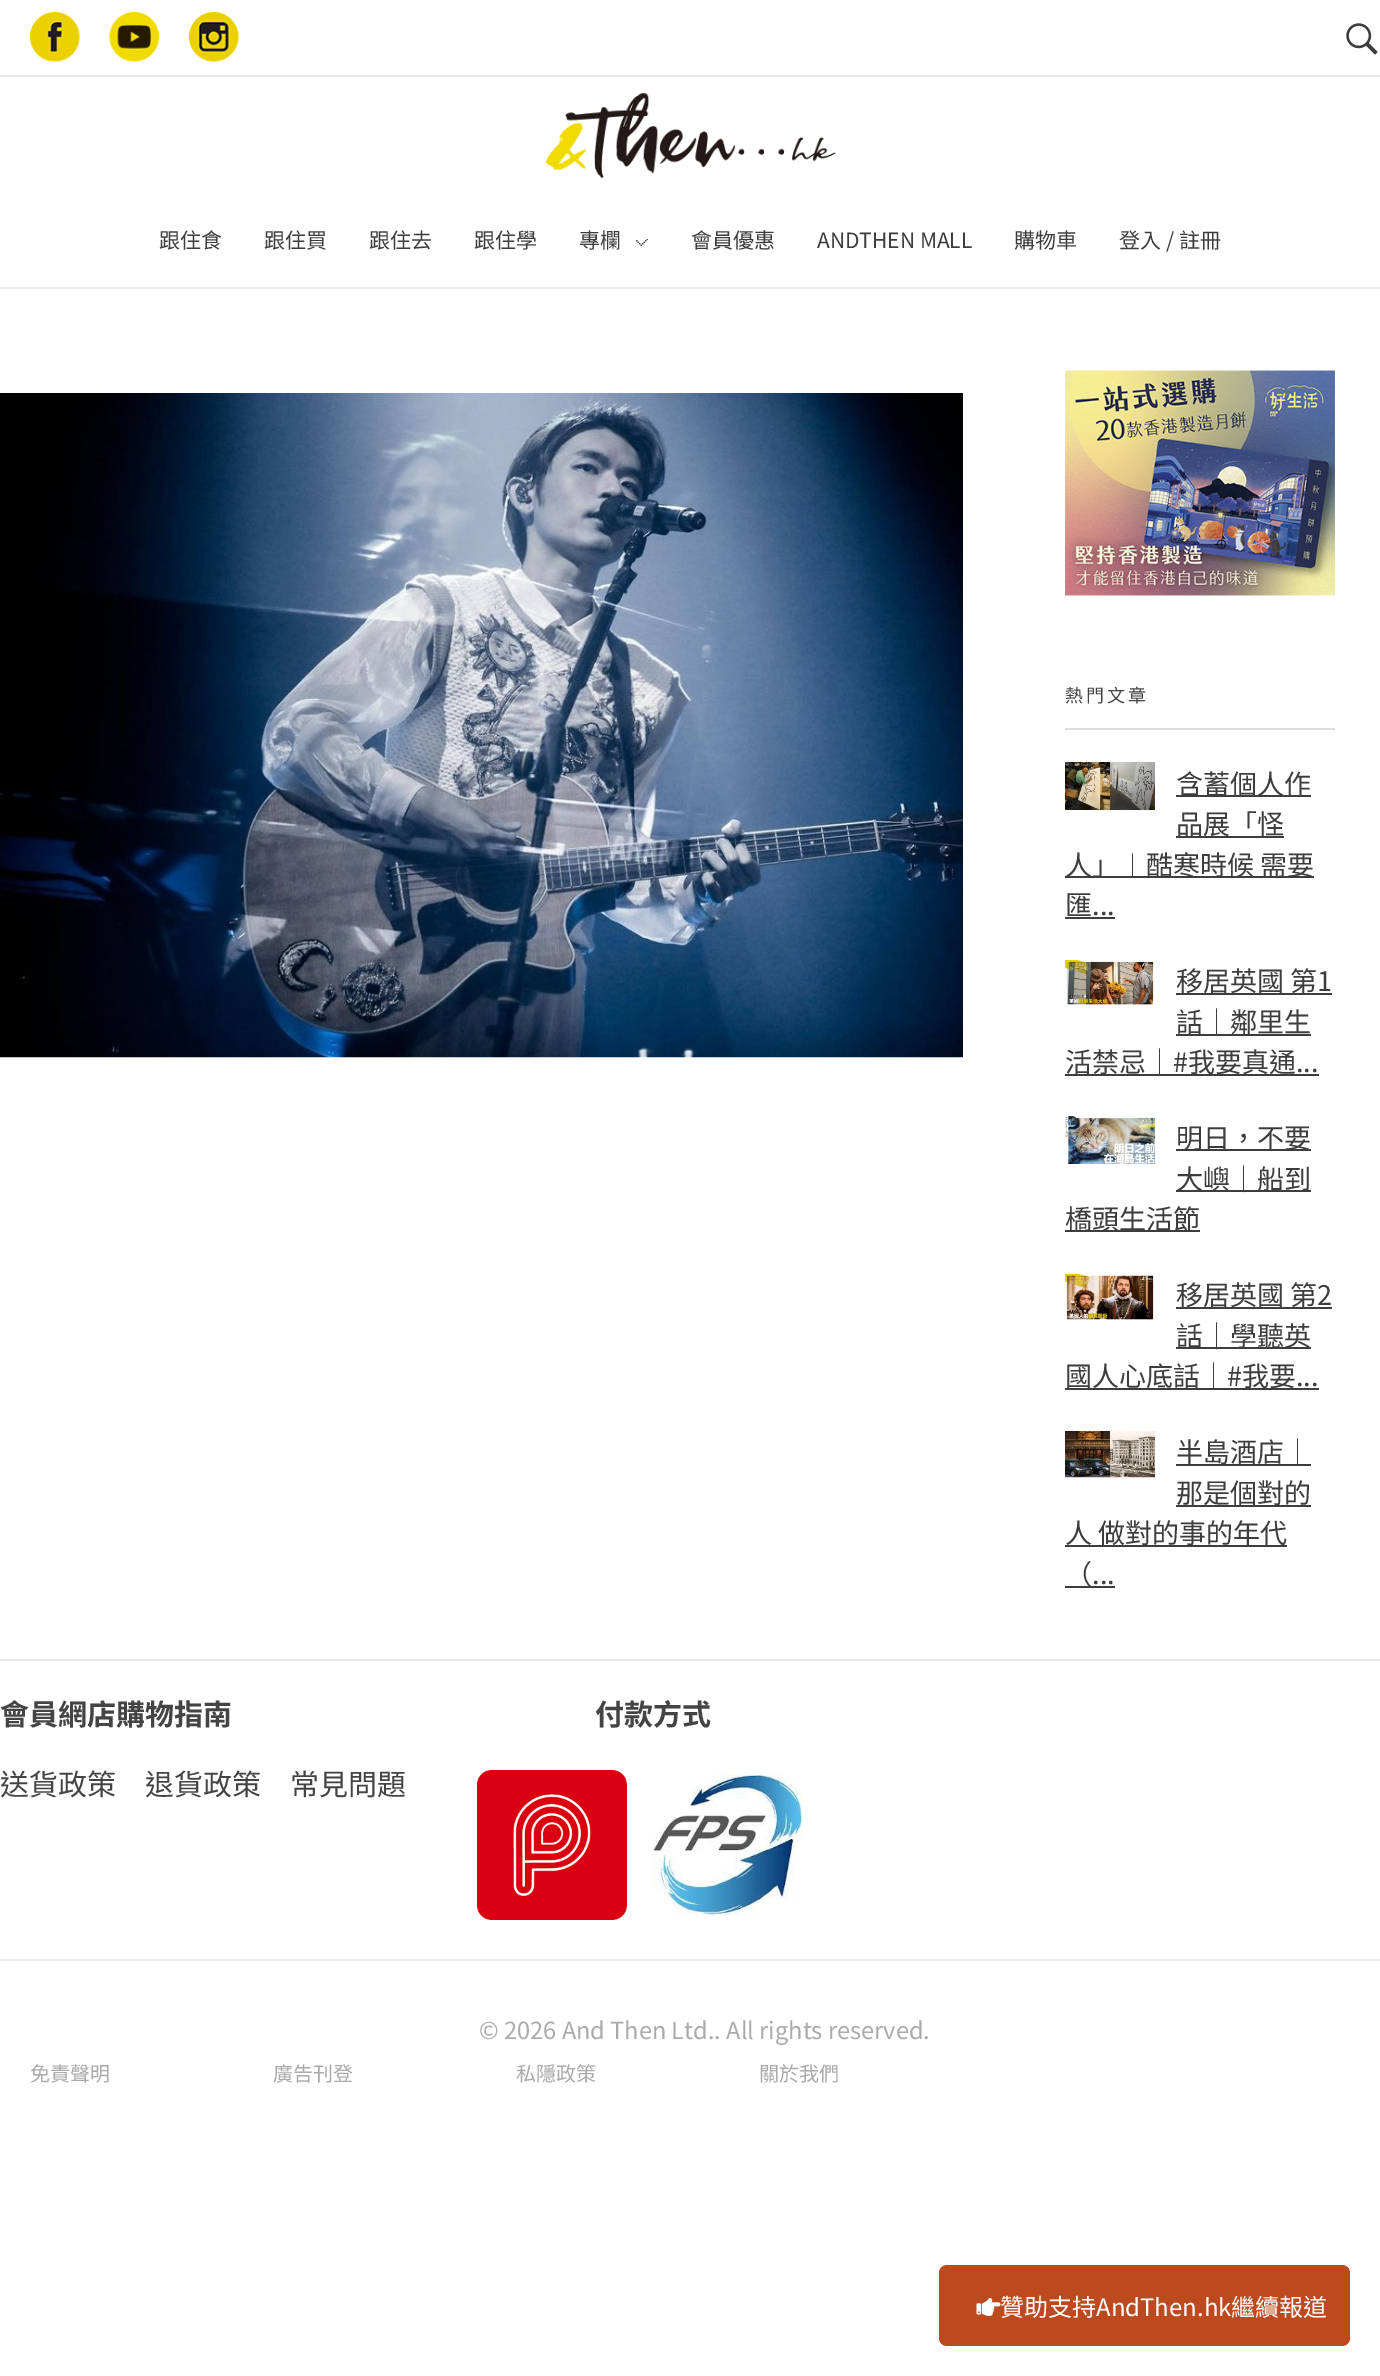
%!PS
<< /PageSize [1380 2376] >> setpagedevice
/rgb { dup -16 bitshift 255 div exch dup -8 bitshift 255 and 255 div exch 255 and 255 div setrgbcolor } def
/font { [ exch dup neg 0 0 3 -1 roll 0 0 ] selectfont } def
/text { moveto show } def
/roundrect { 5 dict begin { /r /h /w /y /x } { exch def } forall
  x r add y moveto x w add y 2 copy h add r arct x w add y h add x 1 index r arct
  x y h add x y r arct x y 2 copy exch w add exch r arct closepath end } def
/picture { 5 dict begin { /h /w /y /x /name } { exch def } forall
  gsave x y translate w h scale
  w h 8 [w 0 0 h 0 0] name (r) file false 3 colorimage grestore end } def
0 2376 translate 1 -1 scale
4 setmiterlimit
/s1 { /NotoSansHK-Regular 21 font 16#3D3D3D rgb } def
/s2 { /NotoSansHK-Regular 27 font 16#3D3D3D rgb } def
/s3 { /NotoSansHK-Bold 29 font 16#444444 rgb } def
/s4 { /NotoSansHK-Regular 29 font 16#444444 rgb } def
/s5 { /NotoSansHK-Regular 23.6 font 16#AAAAAA rgb } def
/s6 { /NotoSansHK-Regular 20 font 16#AAAAAA rgb } def
/s7 { /NotoSansHK-Regular 24 font 16#FFFFFF rgb } def
16#FFFFFF rgb
0 0 1380 2376 rectfill
16#EAEAEA rgb
0 75 1380 2 rectfill
(pic1.raw) 30 12 50 50 picture
(pic2.raw) 109 12 50 50 picture
(pic3.raw) 189 12 50 50 picture
(pic4.raw) 1346 23 32 32 picture
0 287 1380 2 rectfill
(pic5.raw) 546 93 290 85 picture
s1
(跟住食) 159 248 text
(跟住買) 264 248 text
(跟住去) 369 248 text
(跟住學) 474 248 text
(專欄) 579 248 text
(pic6.raw) 636 239 12 7 picture
(會員優惠) 691 248 text
(ANDTHEN MALL) 817 248 text
(購物車) 1014 248 text
(登入 / 註冊) 1119 248 text
(pic7.raw) 0 393 963 665 picture
(pic8.raw) 1065 370 270 226 picture
16#DEDEDE rgb
1065 728 270 2 rectfill
/NotoSansHK-Regular 18 font
16#444444 rgb
1065 702 moveto 3 0 (熱門文章) ashow
(pic9.raw) 1065 762 90 48 picture
16#3D3D3D rgb
1176 795 135 2 rectfill
s2
(含蓄個人作) 1176 794 text
1176 836 108 2 rectfill
(品展「怪) 1176 834 text
1065 876 249 2 rectfill
(人」︱酷寒時候 需要) 1065 875 text
(匯...) 1065 915 text
1065 917 50 2 rectfill
(pic10.raw) 1065 960 89 46 picture
1176 993 156 2 rectfill
(移居英國 第1) 1176 991 text
1176 1034 135 2 rectfill
(話｜鄰里生) 1176 1032 text
1065 1074 254 2 rectfill
(活禁忌｜#我要真通...) 1065 1072 text
(pic11.raw) 1065 1116 90 48 picture
1176 1149 135 2 rectfill
(明日，不要) 1176 1148 text
1176 1190 135 2 rectfill
(大嶼｜船到) 1176 1189 text
1065 1230 135 2 rectfill
(橋頭生活節) 1065 1229 text
(pic12.raw) 1065 1273 89 47 picture
1176 1307 156 2 rectfill
(移居英國 第2) 1176 1305 text
1176 1347 135 2 rectfill
(話｜學聽英) 1176 1346 text
1065 1388 254 2 rectfill
(國人心底話｜#我要...) 1065 1386 text
(pic13.raw) 1065 1431 90 47 picture
1176 1464 135 2 rectfill
(半島酒店｜) 1176 1462 text
1176 1505 135 2 rectfill
(那是個對的) 1176 1503 text
1065 1545 222 2 rectfill
(人 做對的事的年代) 1065 1543 text
1065 1586 50 2 rectfill
(（...) 1065 1584 text
16#EAEAEA rgb
0 1659 1380 2 rectfill
s3
(會員網店購物指南) 0 1725 text
s4
(送貨政策) 0 1795 text
(退貨政策) 145 1795 text
(常見問題) 290 1795 text
s3
(付款方式) 595 1725 text
(pic14.raw) 477 1770 150 150 picture
(pic15.raw) 652 1774 151 142 picture
16#EAEAEA rgb
0 1959 1380 2 rectfill
s5
(© 2026 And Then Ltd.. All rights reserved.) 479 2039 text
s6
(免責聲明) 30 2081 text
(廣告刊登) 273 2081 text
(私隱政策) 516 2081 text
(關於我們) 759 2081 text
16#BC4A1E rgb
939 2265 411 81 8 roundrect fill
(pic16.raw) 976 2298 25 18 picture
s7
(贊助支持AndThen.hk繼續報道) 1000 2316 text
showpage
